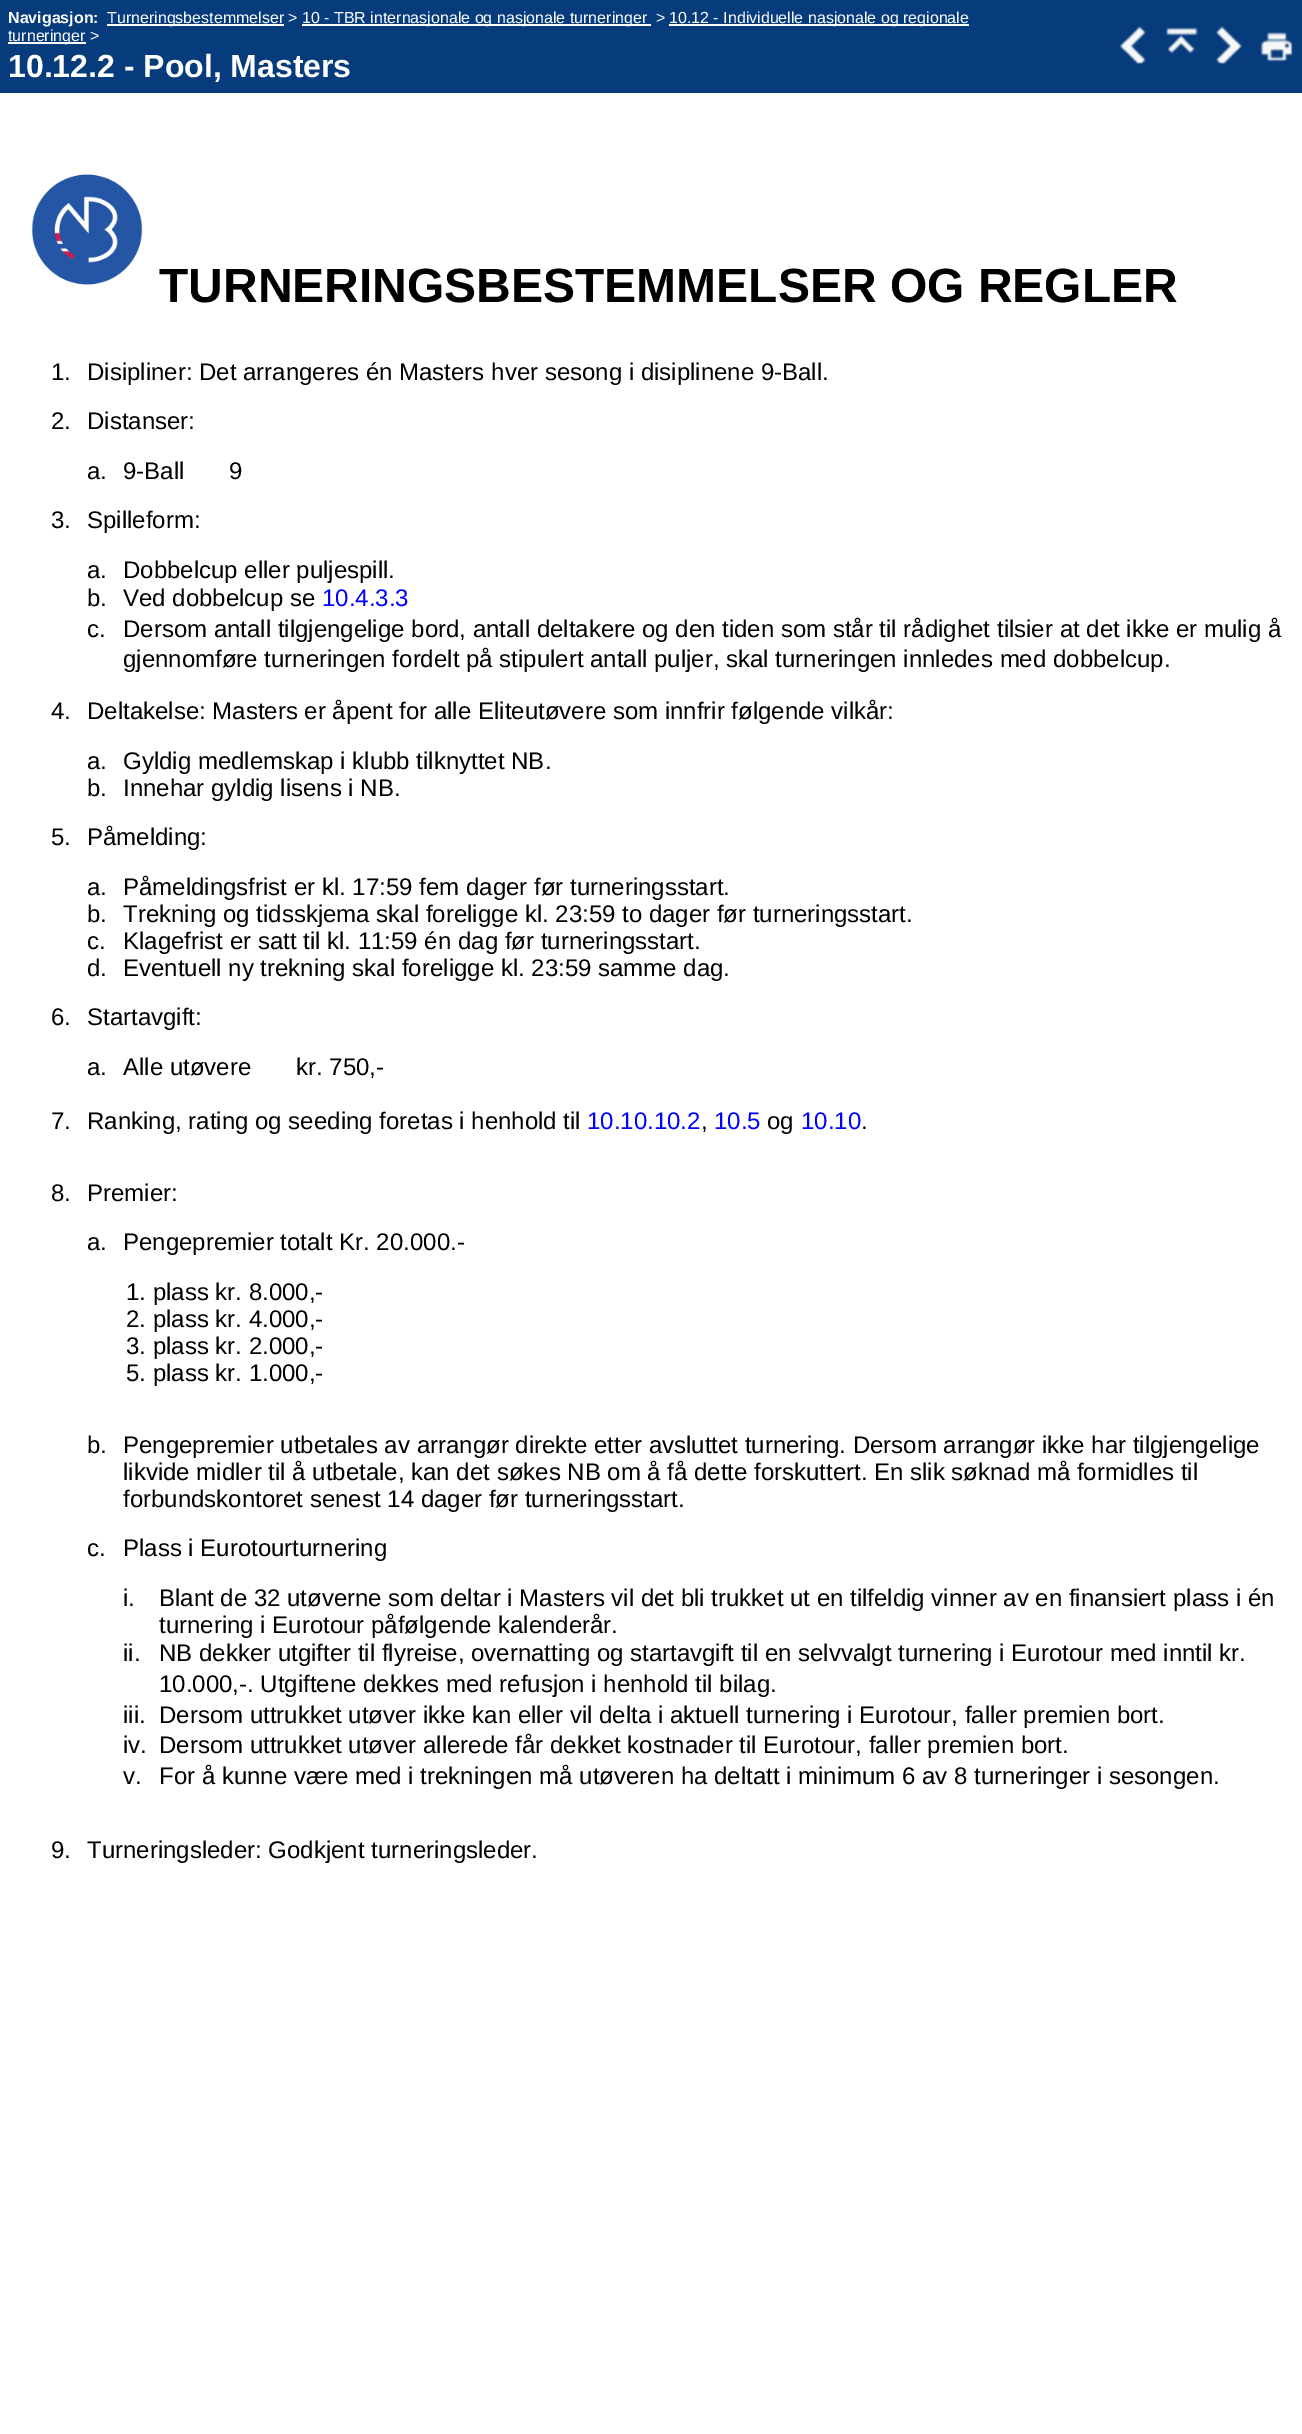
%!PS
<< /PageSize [1302 2434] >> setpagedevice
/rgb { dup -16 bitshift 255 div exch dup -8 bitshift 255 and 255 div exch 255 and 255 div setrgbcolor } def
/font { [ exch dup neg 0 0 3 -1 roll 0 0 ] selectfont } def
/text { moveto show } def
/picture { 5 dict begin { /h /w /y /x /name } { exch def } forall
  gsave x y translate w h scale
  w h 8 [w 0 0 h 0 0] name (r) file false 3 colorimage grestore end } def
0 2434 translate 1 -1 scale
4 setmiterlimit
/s1 { /LiberationSans-Bold 16 font 16#FFFFFF rgb } def
/s2 { /LiberationSans-Regular 16 font 16#FFFFFF rgb } def
/s3 { /LiberationSans-Bold 32 font 16#FFFFFF rgb } def
/s4 { /LiberationSans-Bold 48 font 16#000000 rgb } def
/s5 { /LiberationSans-Regular 24 font 16#000000 rgb } def
/s6 { /LiberationSans-Regular 24 font 16#0000FF rgb } def
16#FFFFFF rgb
0 0 1302 2434 rectfill
16#063C7C rgb
0 0 1302 93 rectfill
s1
(Navigasjon:) 8 23 text
107 24 177 2 rectfill
s2
(Turneringsbestemmelser >) 107 23 text
302 24 349 2 rectfill
(10 - TBR internasjonale og nasjonale turneringer) 302 23 text
(>) 656 23 text
669 24 300 2 rectfill
(10.12 - Individuelle nasjonale og regionale) 669 23 text
8 42 78 2 rectfill
(turneringer >) 8 41 text
s3
(10.12.2 - Pool, Masters) 8 77 text
(pic1.raw) 1119 26 27 38 picture
(pic2.raw) 1166 27 32 27 picture
(pic3.raw) 1215 26 28 38 picture
(pic4.raw) 1260 32 33 30 picture
(pic5.raw) 31 174 112 111 picture
s4
(TURNERINGSBESTEMMELSER OG REGLER) 159 302 text
s5
(1.) 51 380 text
(Disipliner: Det arrangeres én Masters hver sesong i disiplinene 9-Ball.) 87 380 text
(2.) 51 429 text
(Distanser:) 87 429 text
(a.) 87 479 text
(9-Ball) 123 479 text
(9) 229 479 text
(3.) 51 528 text
(Spilleform:) 87 528 text
(a.) 87 578 text
(Dobbelcup eller puljespill.) 123 578 text
(b.) 87 606 text
(Ved dobbelcup se) 123 606 text
s6
(10.4.3.3) 322 606 text
s5
(c.) 87 637 text
(Dersom antall tilgjengelige bord, antall deltakere og den tiden som står til rådighet tilsier at det ikke er mulig å) 123 637 text
(gjennomføre turneringen fordelt på stipulert antall puljer, skal turneringen innledes med dobbelcup.) 123 667 text
(4.) 51 719 text
(Deltakelse: Masters er åpent for alle Eliteutøvere som innfrir følgende vilkår:) 87 719 text
(a.) 87 769 text
(Gyldig medlemskap i klubb tilknyttet NB.) 123 769 text
(b.) 87 796 text
(Innehar gyldig lisens i NB.) 123 796 text
(5.) 51 845 text
(Påmelding:) 87 845 text
(a.) 87 895 text
(Påmeldingsfrist er kl. 17:59 fem dager før turneringsstart.) 123 895 text
(b.) 87 922 text
(Trekning og tidsskjema skal foreligge kl. 23:59 to dager før turneringsstart.) 123 922 text
(c.) 87 949 text
(Klagefrist er satt til kl. 11:59 én dag før turneringsstart.) 123 949 text
(d.) 87 976 text
(Eventuell ny trekning skal foreligge kl. 23:59 samme dag.) 123 976 text
(6.) 51 1025 text
(Startavgift:) 87 1025 text
(a.) 87 1075 text
(Alle utøvere) 123 1075 text
(kr. 750,-) 296 1075 text
(7.) 51 1129 text
(Ranking, rating og seeding foretas i henhold til) 87 1129 text
s6
(10.10.10.2) 587 1129 text
s5
(,) 701 1129 text
s6
(10.5) 714 1129 text
s5
(og) 767 1129 text
s6
(10.10) 801 1129 text
s5
(.) 861 1129 text
(8.) 51 1201 text
(Premier:) 87 1201 text
(a.) 87 1250 text
(Pengepremier totalt Kr. 20.000.-) 123 1250 text
(1. plass kr. 8.000,-) 126 1300 text
(2. plass kr. 4.000,-) 126 1327 text
(3. plass kr. 2.000,-) 126 1354 text
(5. plass kr. 1.000,-) 126 1381 text
(b.) 87 1453 text
(Pengepremier utbetales av arrangør direkte etter avsluttet turnering. Dersom arrangør ikke har tilgjengelige) 123 1453 text
(likvide midler til å utbetale, kan det søkes NB om å få dette forskuttert. En slik søknad må formidles til) 123 1480 text
(forbundskontoret senest 14 dager før turneringsstart.) 123 1507 text
(c.) 87 1556 text
(Plass i Eurotourturnering) 123 1556 text
(i.) 123 1606 text
(Blant de 32 utøverne som deltar i Masters vil det bli trukket ut en tilfeldig vinner av en finansiert plass i én) 159 1606 text
(turnering i Eurotour påfølgende kalenderår.) 159 1633 text
(ii.) 123 1661 text
(NB dekker utgifter til flyreise, overnatting og startavgift til en selvvalgt turnering i Eurotour med inntil kr.) 159 1661 text
(10.000,-. Utgiftene dekkes med refusjon i henhold til bilag.) 159 1692 text
(iii.) 123 1723 text
(Dersom uttrukket utøver ikke kan eller vil delta i aktuell turnering i Eurotour, faller premien bort.) 159 1723 text
(iv.) 123 1753 text
(Dersom uttrukket utøver allerede får dekket kostnader til Eurotour, faller premien bort.) 159 1753 text
(v.) 123 1784 text
(For å kunne være med i trekningen må utøveren ha deltatt i minimum 6 av 8 turneringer i sesongen.) 159 1784 text
(9.) 51 1858 text
(Turneringsleder: Godkjent turneringsleder.) 87 1858 text
showpage
